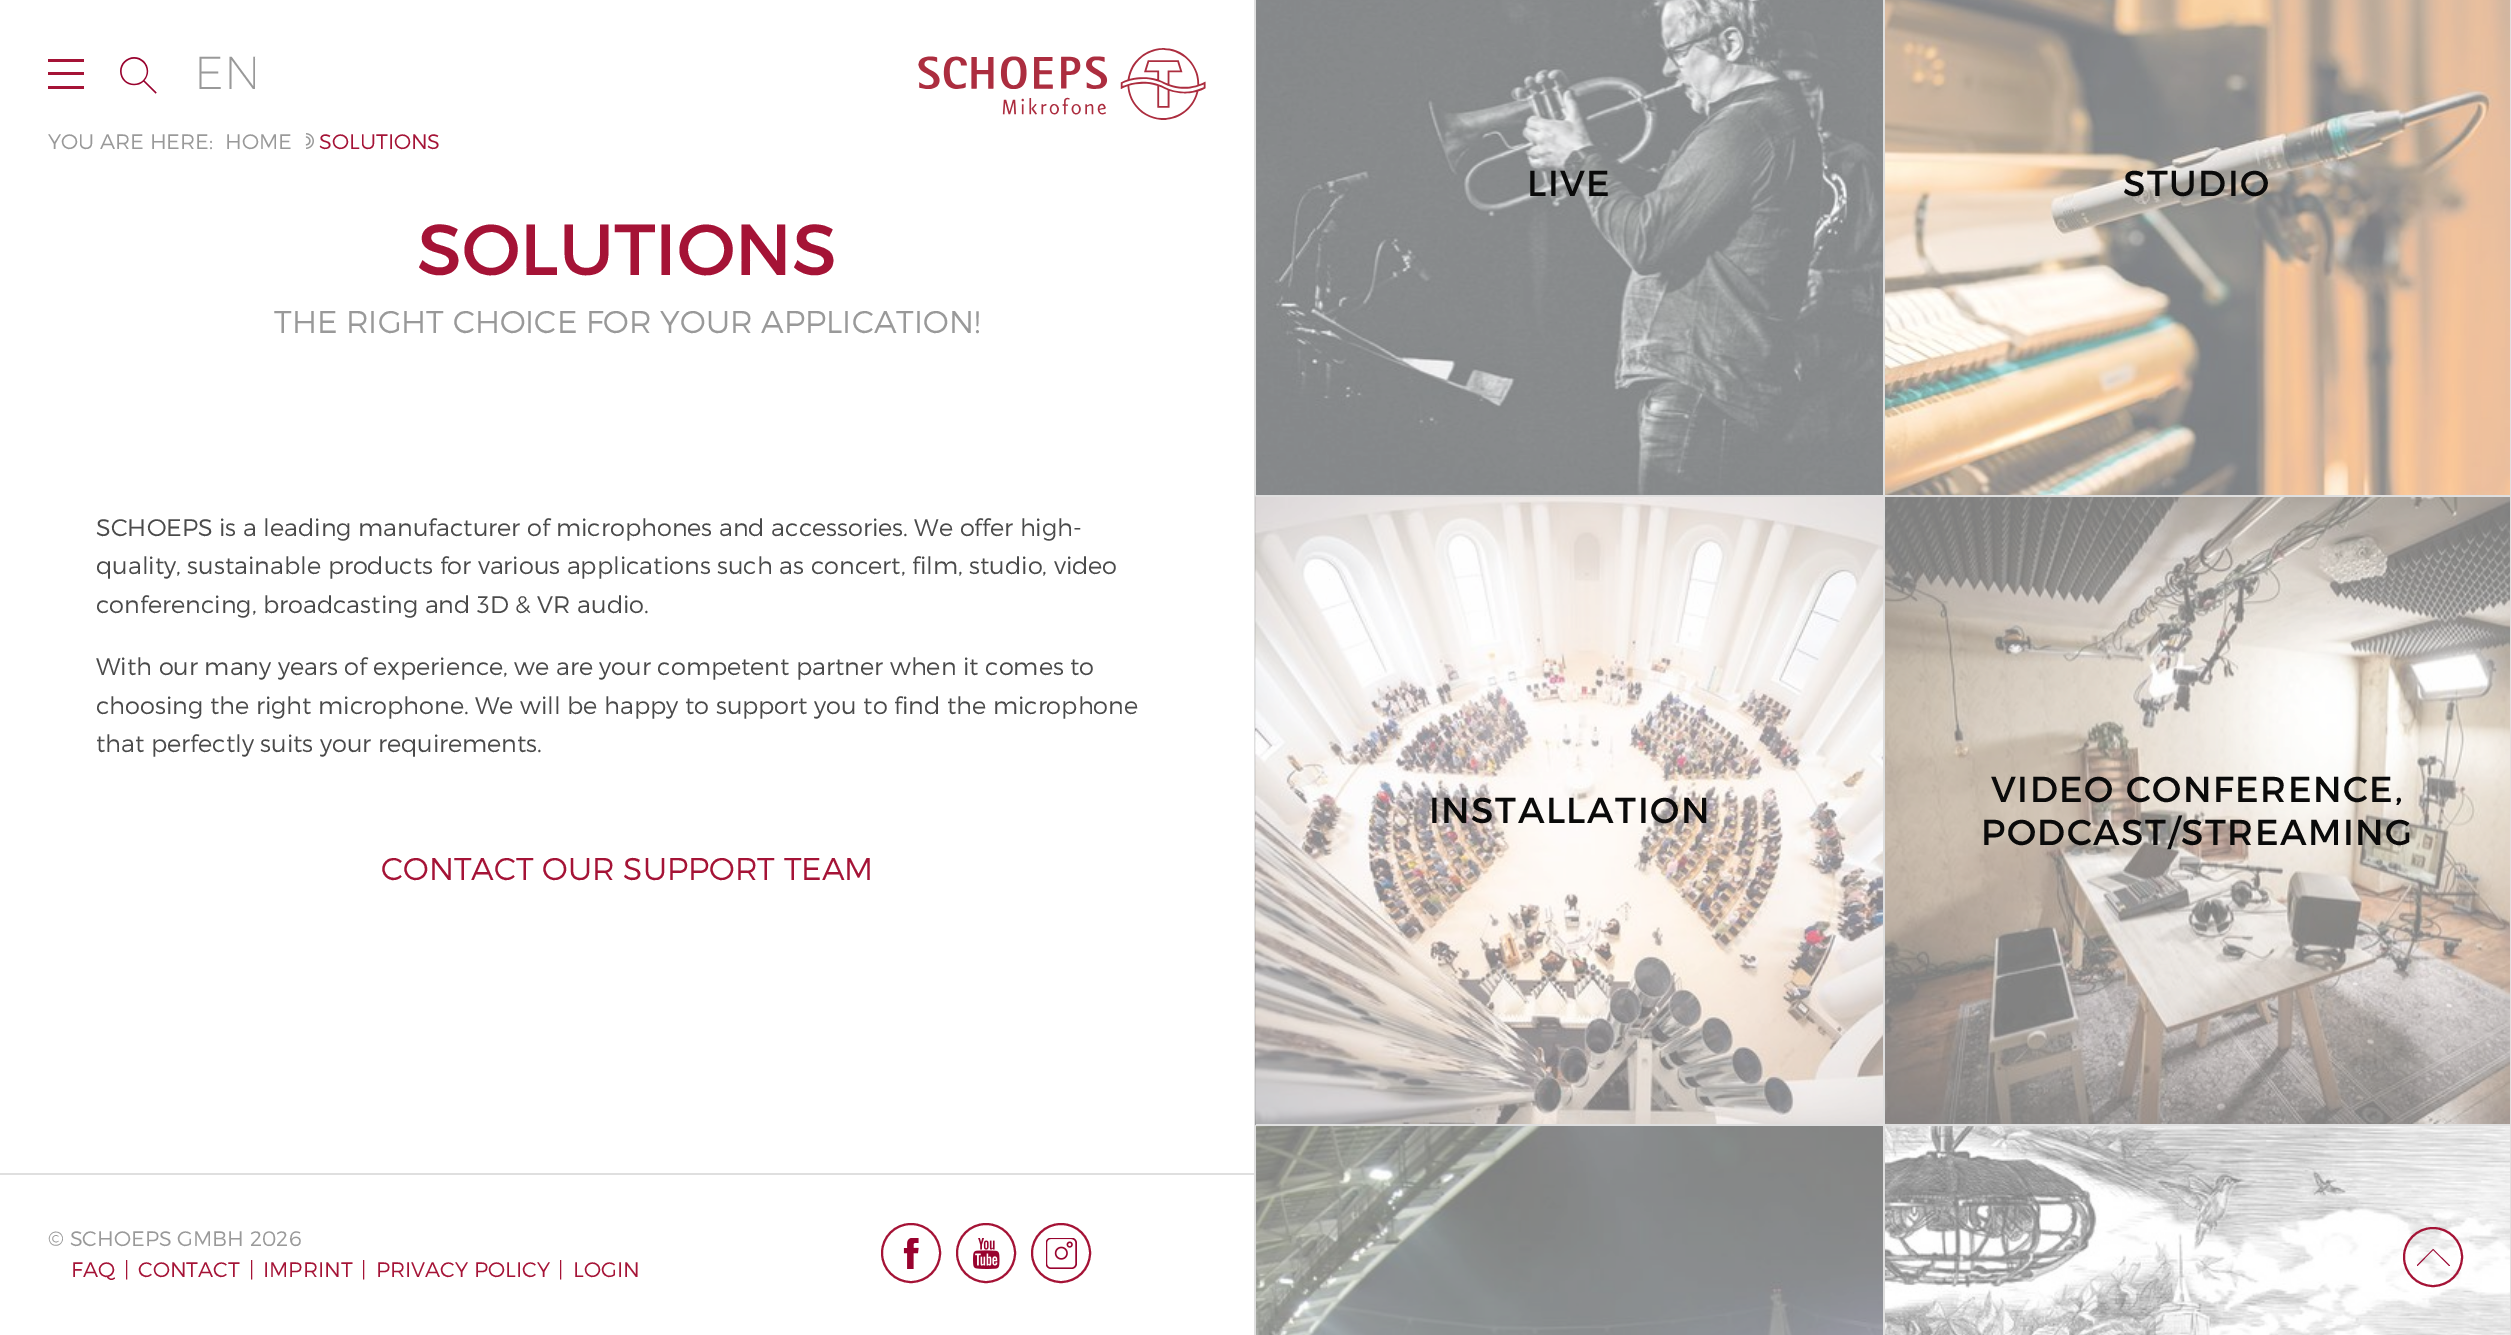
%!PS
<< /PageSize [2511 1335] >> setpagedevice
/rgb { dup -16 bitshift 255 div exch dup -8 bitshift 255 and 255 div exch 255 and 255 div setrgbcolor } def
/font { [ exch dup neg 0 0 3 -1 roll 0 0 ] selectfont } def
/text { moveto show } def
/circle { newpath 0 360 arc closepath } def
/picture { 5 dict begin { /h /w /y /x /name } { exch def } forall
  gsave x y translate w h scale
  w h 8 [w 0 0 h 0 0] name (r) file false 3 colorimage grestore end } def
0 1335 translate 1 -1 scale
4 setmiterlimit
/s1 { /Montserrat-ExtraLight 46 font 16#999999 rgb } def
/s2 { /Montserrat-Light 21 font 16#999999 rgb } def
/s3 { /Montserrat-Light 21 font 16#A51336 rgb } def
/s4 { /Montserrat-Regular 72 font 16#A51336 rgb } def
/s5 { /Montserrat-Light 31.5 font 16#999999 rgb } def
/s6 { /Montserrat-Light 24 font 16#4A4A4A rgb } def
/s7 { /Montserrat-Light 31.5 font 16#A51336 rgb } def
16#FFFFFF rgb
0 0 2511 1335 rectfill
16#DFDFDF rgb
1254 0 2 1173 rectfill
16#A51336 rgb
48 72 36 3 rectfill
48 59 36 3 rectfill
48 86 36 3 rectfill
(pic1.raw) 120 57 37 37 picture
s1
(EN) 194 89 text
(pic2.raw) 918 48 288 72 picture
s2
(YOU ARE HERE:) 48 149 text
(HOME) 225 149 text
(pic3.raw) 305 133 9 16 picture
s3
(SOLUTIONS) 319 149 text
s4
(SOLUTIONS) 417 275 text
s5
(THE RIGHT CHOICE FOR YOUR APPLICATION!) 274 333 text
s6
(SCHOEPS is a leading manufacturer of microphones and accessories. We offer high-) 96 536 text
(quality, sustainable products for various applications such as concert, film, studio, video) 96 574 text
(conferencing, broadcasting and 3D & VR audio.) 96 613 text
(With our many years of experience, we are your competent partner when it comes to) 96 675 text
(choosing the right microphone. We will be happy to support you to find the microphone) 96 714 text
(that perfectly suits your requirements.) 96 752 text
s7
(CONTACT OUR SUPPORT TEAM) 381 880 text
16#DFDFDF rgb
0 1173 1256 2 rectfill
1254 1173 2 162 rectfill
s2
(© SCHOEPS GMBH 2026) 48 1246 text
s3
(FAQ) 71 1277 text
(|) 124 1277 text
(CONTACT) 138 1277 text
(|) 249 1277 text
(IMPRINT) 263 1277 text
(|) 361 1277 text
(PRIVACY POLICY) 376 1277 text
(|) 558 1277 text
(LOGIN) 573 1277 text
2 setlinewidth
911 1253 29 circle stroke
(pic4.raw) 903 1238 16 31 picture
986 1253 29 circle stroke
(pic5.raw) 973 1238 27 31 picture
1061 1253 29 circle stroke
(pic6.raw) 1046 1238 31 31 picture
(pic7.raw) 1256 0 627 495 picture
/Montserrat-Regular 36 font
16#0A0A0A rgb
1527 196 moveto 1.5 0 (LIVE) ashow
16#DFDFDF rgb
1883 0 2 1125 rectfill
(pic9.raw) 1255 496 628 629 picture
1256 495 628 2 rectfill
(pic8.raw) 1885 0 625 495 picture
16#0A0A0A rgb
2123 196 moveto 1.5 0 (STUDIO) ashow
16#DFDFDF rgb
2510 0 1 1125 rectfill
1884 495 627 2 rectfill
16#0A0A0A rgb
1429 823 moveto 1.5 0 (INSTALLATION) ashow
16#DFDFDF rgb
1256 1124 1255 2 rectfill
(pic10.raw) 1885 497 625 627 picture
16#0A0A0A rgb
1991 802 moveto 1.5 0 (VIDEO CONFERENCE,) ashow
1981 845 moveto 1.5 0 (PODCAST/STREAMING) ashow
(pic11.raw) 1256 1126 627 209 picture
16#DFDFDF rgb
1883 1125 2 210 rectfill
(pic12.raw) 1885 1126 625 209 picture
2510 1125 1 210 rectfill
16#A51336 rgb
2433 1257 29 circle stroke
gsave
2417 1233 33 33 rectclip
16#99022E rgb
2449.5 1266.5 moveto 2433 1250 lineto 2417 1266.5 lineto 2416.5 1265.5 lineto 2433 1249 lineto 2450 1265.5 lineto closepath fill
grestore
showpage
